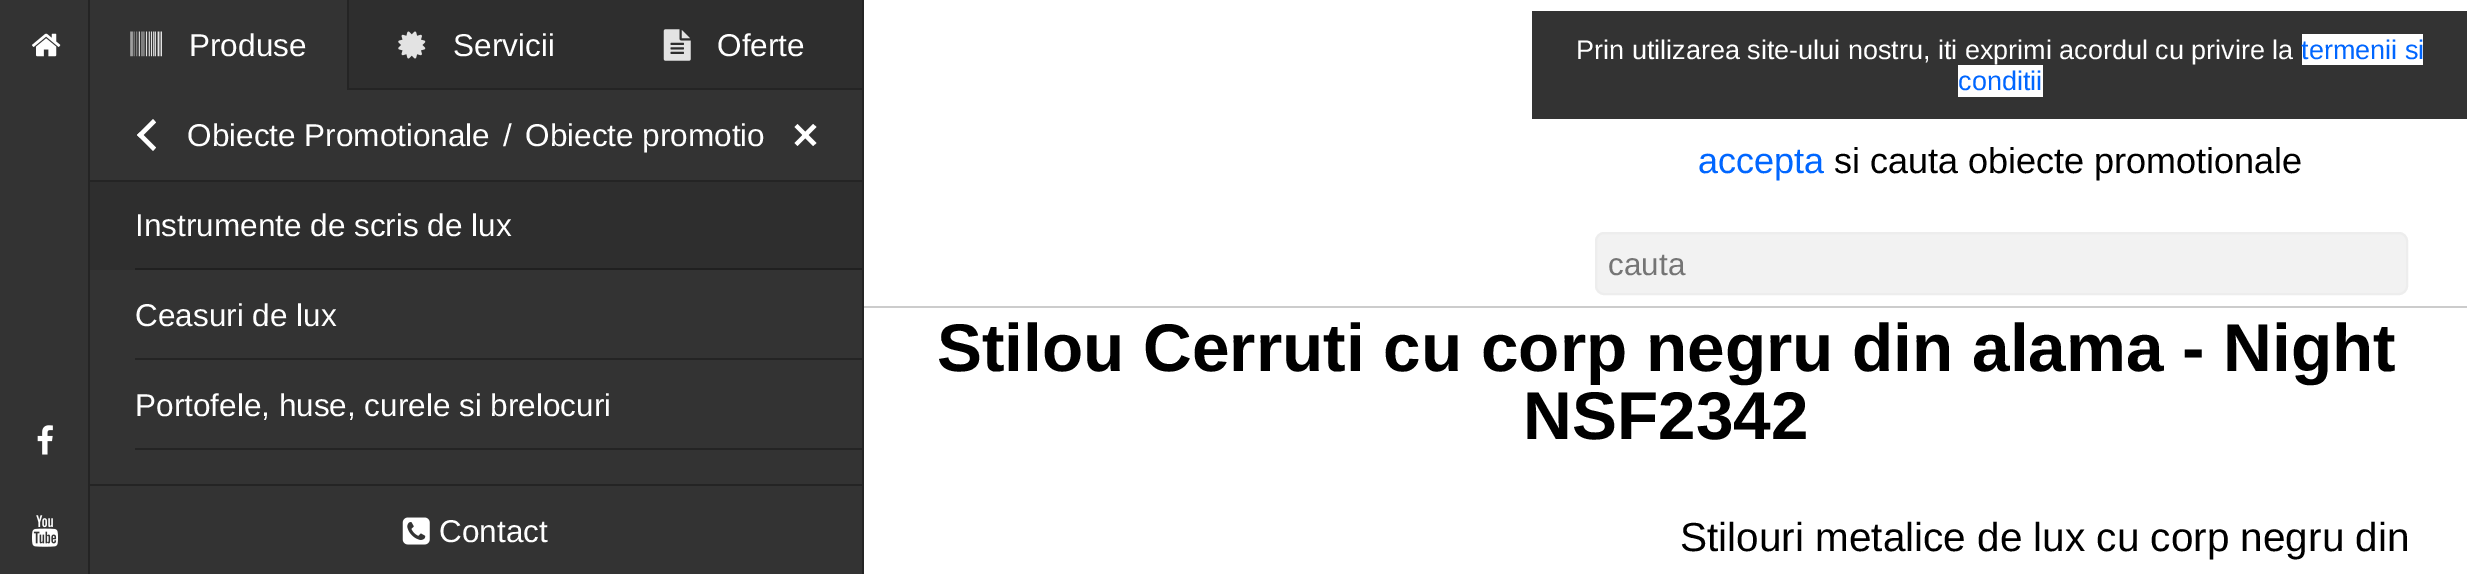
%!PS
<< /PageSize [2467 574] >> setpagedevice
/rgb { dup -16 bitshift 255 div exch dup -8 bitshift 255 and 255 div exch 255 and 255 div setrgbcolor } def
/font { [ exch dup neg 0 0 3 -1 roll 0 0 ] selectfont } def
/text { moveto show } def
/roundrect { 5 dict begin { /r /h /w /y /x } { exch def } forall
  x r add y moveto x w add y 2 copy h add r arct x w add y h add x 1 index r arct
  x y h add x y r arct x y 2 copy exch w add exch r arct closepath end } def
/picture { 5 dict begin { /h /w /y /x /name } { exch def } forall
  gsave x y translate w h scale
  w h 8 [w 0 0 h 0 0] name (r) file false 3 colorimage grestore end } def
0 574 translate 1 -1 scale
4 setmiterlimit
/s1 { /LiberationSans-Regular 31.5 font 16#FFFFFF rgb } def
/s2 { /LiberationSans-Regular 27 font 16#FFFFFF rgb } def
/s3 { /LiberationSans-Regular 27 font 16#0066FF rgb } def
/s4 { /LiberationSans-Regular 36 font 16#0066FF rgb } def
/s5 { /LiberationSans-Regular 36 font 16#000000 rgb } def
/s6 { /LiberationSans-Regular 31.5 font 16#757575 rgb } def
/s7 { /LiberationSans-Bold 67.5 font 16#000000 rgb } def
/s8 { /LiberationSans-Regular 40.5 font 16#000000 rgb } def
16#FFFFFF rgb
0 0 2467 574 rectfill
16#333333 rgb
0 0 862 574 rectfill
16#242424 rgb
862 0 2 574 rectfill
88 0 2 574 rectfill
(pic1.raw) 32 33 29 24 picture
(pic2.raw) 37 425 16 30 picture
(pic3.raw) 32 515 26 32 picture
90 180 772 2 rectfill
349 88 513 2 rectfill
347 0 2 90 rectfill
(pic4.raw) 130 31 32 26 picture
s1
(Produse) 189 56 text
16#2E2E2E rgb
349 0 513 88 rectfill
(pic5.raw) 398 31 28 28 picture
s1
(Servicii) 453 56 text
(pic6.raw) 663 29 28 32 picture
(Oferte) 717 56 text
137 135 moveto 153 119 lineto 156 122.5 lineto 140.5 138 lineto closepath fill
137 135 moveto 140.5 132 lineto 156 147.5 lineto 153 151 lineto closepath fill
(Obiecte Promotionale) 187 146 text
(/) 503 146 text
(Obiecte promotio) 525 146 text
802 135 moveto 813 124 lineto 816.5 127 lineto 805.5 138 lineto closepath fill
802 135 moveto 805.5 132 lineto 816.5 143 lineto 813 146 lineto closepath fill
794.5 127 moveto 797.5 124 lineto 808.5 135 lineto 805.5 138 lineto closepath fill
794.5 143 moveto 805.5 132 lineto 808.5 135 lineto 797.5 146 lineto closepath fill
16#2E2E2E rgb
90 182 772 88 rectfill
s1
(Instrumente de scris de lux) 135 236 text
16#202020 rgb
135 268 727 2 rectfill
s1
(Ceasuri de lux) 135 326 text
16#242424 rgb
135 358 727 2 rectfill
s1
(Portofele, huse, curele si brelocuri) 135 416 text
16#242424 rgb
135 448 727 2 rectfill
90 484 772 2 rectfill
(pic7.raw) 402 517 28 28 picture
s1
(Contact) 439 542 text
16#CCCCCC rgb
864 306 1603 2 rectfill
16#333333 rgb
1532 11 935 108 rectfill
s2
(Prin utilizarea site-ului nostru, iti exprimi acordul cu privire la) 1576 59 text
2302 34 121 31 rectfill
s3
(termenii si) 2301 59 text
16#FFFFFF rgb
1958 65 85 32 rectfill
s3
(conditii) 1958 90 text
s4
(accepta) 1698 173 text
s5
(si cauta obiecte promotionale) 1834 173 text
16#F2F2F2 rgb
1596 233 811 61 8 roundrect gsave fill grestore
16#EDEDED rgb
2 setlinewidth
stroke
s6
(cauta) 1608 275 text
s7
(Stilou Cerruti cu corp negru din alama - Night) 937 371 text
(NSF2342) 1523 439 text
s8
(Stilouri metalice de lux cu corp negru din) 1680 551 text
showpage
